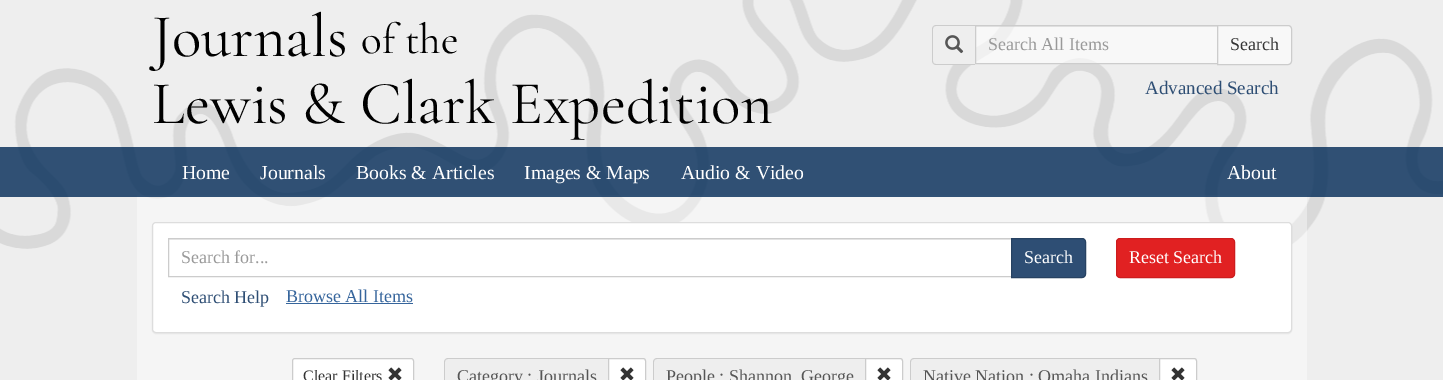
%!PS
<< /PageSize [1443 380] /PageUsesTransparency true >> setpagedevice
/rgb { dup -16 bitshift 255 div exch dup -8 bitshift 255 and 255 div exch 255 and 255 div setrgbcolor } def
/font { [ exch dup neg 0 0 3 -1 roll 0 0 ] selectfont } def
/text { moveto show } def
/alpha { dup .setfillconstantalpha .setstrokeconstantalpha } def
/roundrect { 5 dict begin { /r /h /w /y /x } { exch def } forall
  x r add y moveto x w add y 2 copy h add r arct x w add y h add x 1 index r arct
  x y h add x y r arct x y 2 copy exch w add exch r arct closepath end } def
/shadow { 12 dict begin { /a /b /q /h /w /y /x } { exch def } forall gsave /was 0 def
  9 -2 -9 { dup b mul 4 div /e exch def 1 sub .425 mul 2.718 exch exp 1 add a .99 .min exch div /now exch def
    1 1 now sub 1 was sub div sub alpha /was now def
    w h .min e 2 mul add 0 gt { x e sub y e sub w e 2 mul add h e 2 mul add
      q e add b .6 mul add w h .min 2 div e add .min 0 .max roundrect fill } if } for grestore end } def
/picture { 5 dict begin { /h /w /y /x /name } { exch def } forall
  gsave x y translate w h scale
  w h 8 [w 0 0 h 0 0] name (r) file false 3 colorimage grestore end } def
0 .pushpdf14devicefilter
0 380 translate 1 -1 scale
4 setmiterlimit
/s1 { /CormorantGaramond-Light 61.25 font 16#000000 rgb } def
/s2 { /CormorantGaramond-Light 43 font 16#000000 rgb } def
/s3 { /LiberationSerif-Regular 18 font 16#999999 rgb } def
/s4 { /LiberationSerif-Regular 18 font 16#333333 rgb } def
/s5 { /LiberationSerif-Regular 19 font 16#2E4E74 rgb } def
/s6 { /LiberationSerif-Regular 19.75 font 16#FFFFFF rgb } def
/s7 { /LiberationSerif-Regular 18 font 16#FFFFFF rgb } def
/s8 { /LiberationSerif-Regular 18 font 16#2E4E74 rgb } def
/s9 { /LiberationSerif-Regular 18 font 16#36659C rgb } def
/s10 { /LiberationSerif-Regular 16 font 16#333333 rgb } def
/s11 { /LiberationSerif-Regular 18 font 16#555555 rgb } def
16#EEEEEE rgb
0 0 1443 380 rectfill
(pic1.raw) 0 0 1443 249 picture
s1
(Journals) 152 56 text
s2
(of the) 361 53 text
s1
(Lewis & Clark Expedition) 152 123 text
16#EEEEEE rgb
936 25 moveto 975 25 lineto 975 65 lineto 936 65 lineto 934 65 932 63 932 61 curveto 932 29 lineto 932 27 934 25 936 25 curveto closepath fill
16#CCCCCC rgb
936 25 moveto 975 25 lineto 975 65 lineto 936 65 lineto 934 65 932 63 932 61 curveto 932 29 lineto 932 27 934 25 936 25 curveto closepath 936 26 moveto 975 26 lineto 975 64 lineto 936 64 lineto 934 64 933 63 933 61 curveto 933 29 lineto 933 27 934 26 936 26 curveto closepath eofill
(pic2.raw) 945 35 19 19 picture
0.6 alpha
16#FFFFFF rgb
976 26 241 37 rectfill
0.07 alpha
16#000000 rgb
976 26 241 1 rectfill
1 alpha
16#CCCCCC rgb
975.5 25.5 242 38 rectstroke
s3
(Search All Items) 988 50 text
0.6 alpha
16#FFFFFF rgb
1217.5 25.5 moveto 1288 25.5 lineto 1290 25.5 1291.5 27 1291.5 29 curveto 1291.5 61 lineto 1291.5 63 1290 64.5 1288 64.5 curveto 1217.5 64.5 lineto closepath fill
1 alpha
16#CCCCCC rgb
1217.5 25.5 moveto 1288 25.5 lineto 1290 25.5 1291.5 27 1291.5 29 curveto 1291.5 61 lineto 1291.5 63 1290 64.5 1288 64.5 curveto 1217.5 64.5 lineto closepath stroke
s4
(Search) 1230 50 text
s5
(Advanced Search) 1145 94 text
0.4 alpha
16#FFFFFF rgb
137 195 1170 185 rectfill
0.8 alpha
16#002956 rgb
0 147 1443 50 rectfill
1 alpha
s6
(Home) 182 179 text
(Journals) 260 179 text
(Books & Articles) 356 179 text
(Images & Maps) 524 179 text
(Audio & Video) 681 179 text
(About) 1227 179 text
16#000000 rgb
152 223 1140 111 4 0.5 0.05 shadow
16#FFFFFF rgb
152.5 222.5 1139 110 3.5 roundrect gsave fill grestore
16#DDDDDD rgb
stroke
16#ECECEC rgb
169 239 842 1 rectfill
16#CCCCCC rgb
168.5 238.5 843 38 rectstroke
s3
(Search for...) 181 263 text
16#2E4E74 rgb
1011.5 238.5 moveto 1082 238.5 lineto 1084 238.5 1085.5 240 1085.5 242 curveto 1085.5 274 lineto 1085.5 276 1084 277.5 1082 277.5 curveto 1011.5 277.5 lineto closepath gsave fill grestore
16#274262 rgb
stroke
s7
(Search) 1024 263 text
s8
(Search Help) 181 303 text
s9
(Browse All Items) 286 302 text
286 303 127 1 rectfill
16#E12122 rgb
1116.5 238.5 118 39 3.5 roundrect gsave fill grestore
16#CD1C1D rgb
stroke
s7
(Reset Search) 1129 263 text
292.5 358.5 121 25 2.5 roundrect gsave fill grestore
16#CCCCCC rgb
stroke
s10
(Clear Filters) 303 381 text
(pic3.raw) 388 367 14 13 picture
16#EEEEEE rgb
448 358 moveto 609 358 lineto 609 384 lineto 448 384 lineto 446 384 444 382 444 380 curveto 444 362 lineto 444 360 446 358 448 358 curveto closepath fill
16#CCCCCC rgb
448 358 moveto 609 358 lineto 609 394 lineto 448 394 lineto 446 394 444 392 444 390 curveto 444 362 lineto 444 360 446 358 448 358 curveto closepath 448 359 moveto 609 359 lineto 609 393 lineto 448 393 lineto 446 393 445 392 445 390 curveto 445 362 lineto 445 360 446 359 448 359 curveto closepath eofill
s11
(Category : Journals) 457 382 text
16#FFFFFF rgb
608.5 358.5 moveto 643 358.5 lineto 644.5 358.5 645.5 359.5 645.5 361 curveto 645.5 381 lineto 645.5 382.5 644.5 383.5 643 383.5 curveto 608.5 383.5 lineto closepath gsave fill grestore
16#CCCCCC rgb
stroke
(pic3.raw) 620 367 14 13 picture
16#EEEEEE rgb
657 358 moveto 866 358 lineto 866 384 lineto 657 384 lineto 655 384 653 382 653 380 curveto 653 362 lineto 653 360 655 358 657 358 curveto closepath fill
16#CCCCCC rgb
657 358 moveto 866 358 lineto 866 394 lineto 657 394 lineto 655 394 653 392 653 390 curveto 653 362 lineto 653 360 655 358 657 358 curveto closepath 657 359 moveto 866 359 lineto 866 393 lineto 657 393 lineto 655 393 654 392 654 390 curveto 654 362 lineto 654 360 655 359 657 359 curveto closepath eofill
s11
(People : Shannon, George) 666 382 text
16#FFFFFF rgb
865.5 358.5 moveto 900 358.5 lineto 901.5 358.5 902.5 359.5 902.5 361 curveto 902.5 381 lineto 902.5 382.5 901.5 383.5 900 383.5 curveto 865.5 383.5 lineto closepath gsave fill grestore
16#CCCCCC rgb
stroke
(pic3.raw) 877 367 14 13 picture
16#EEEEEE rgb
914 358 moveto 1160 358 lineto 1160 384 lineto 914 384 lineto 912 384 910 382 910 380 curveto 910 362 lineto 910 360 912 358 914 358 curveto closepath fill
16#CCCCCC rgb
914 358 moveto 1160 358 lineto 1160 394 lineto 914 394 lineto 912 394 910 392 910 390 curveto 910 362 lineto 910 360 912 358 914 358 curveto closepath 914 359 moveto 1160 359 lineto 1160 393 lineto 914 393 lineto 912 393 911 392 911 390 curveto 911 362 lineto 911 360 912 359 914 359 curveto closepath eofill
s11
(Native Nation : Omaha Indians) 923 382 text
16#FFFFFF rgb
1159.5 358.5 moveto 1194 358.5 lineto 1195.5 358.5 1196.5 359.5 1196.5 361 curveto 1196.5 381 lineto 1196.5 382.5 1195.5 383.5 1194 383.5 curveto 1159.5 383.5 lineto closepath gsave fill grestore
16#CCCCCC rgb
stroke
(pic3.raw) 1171 367 14 13 picture
.poppdf14devicefilter showpage
